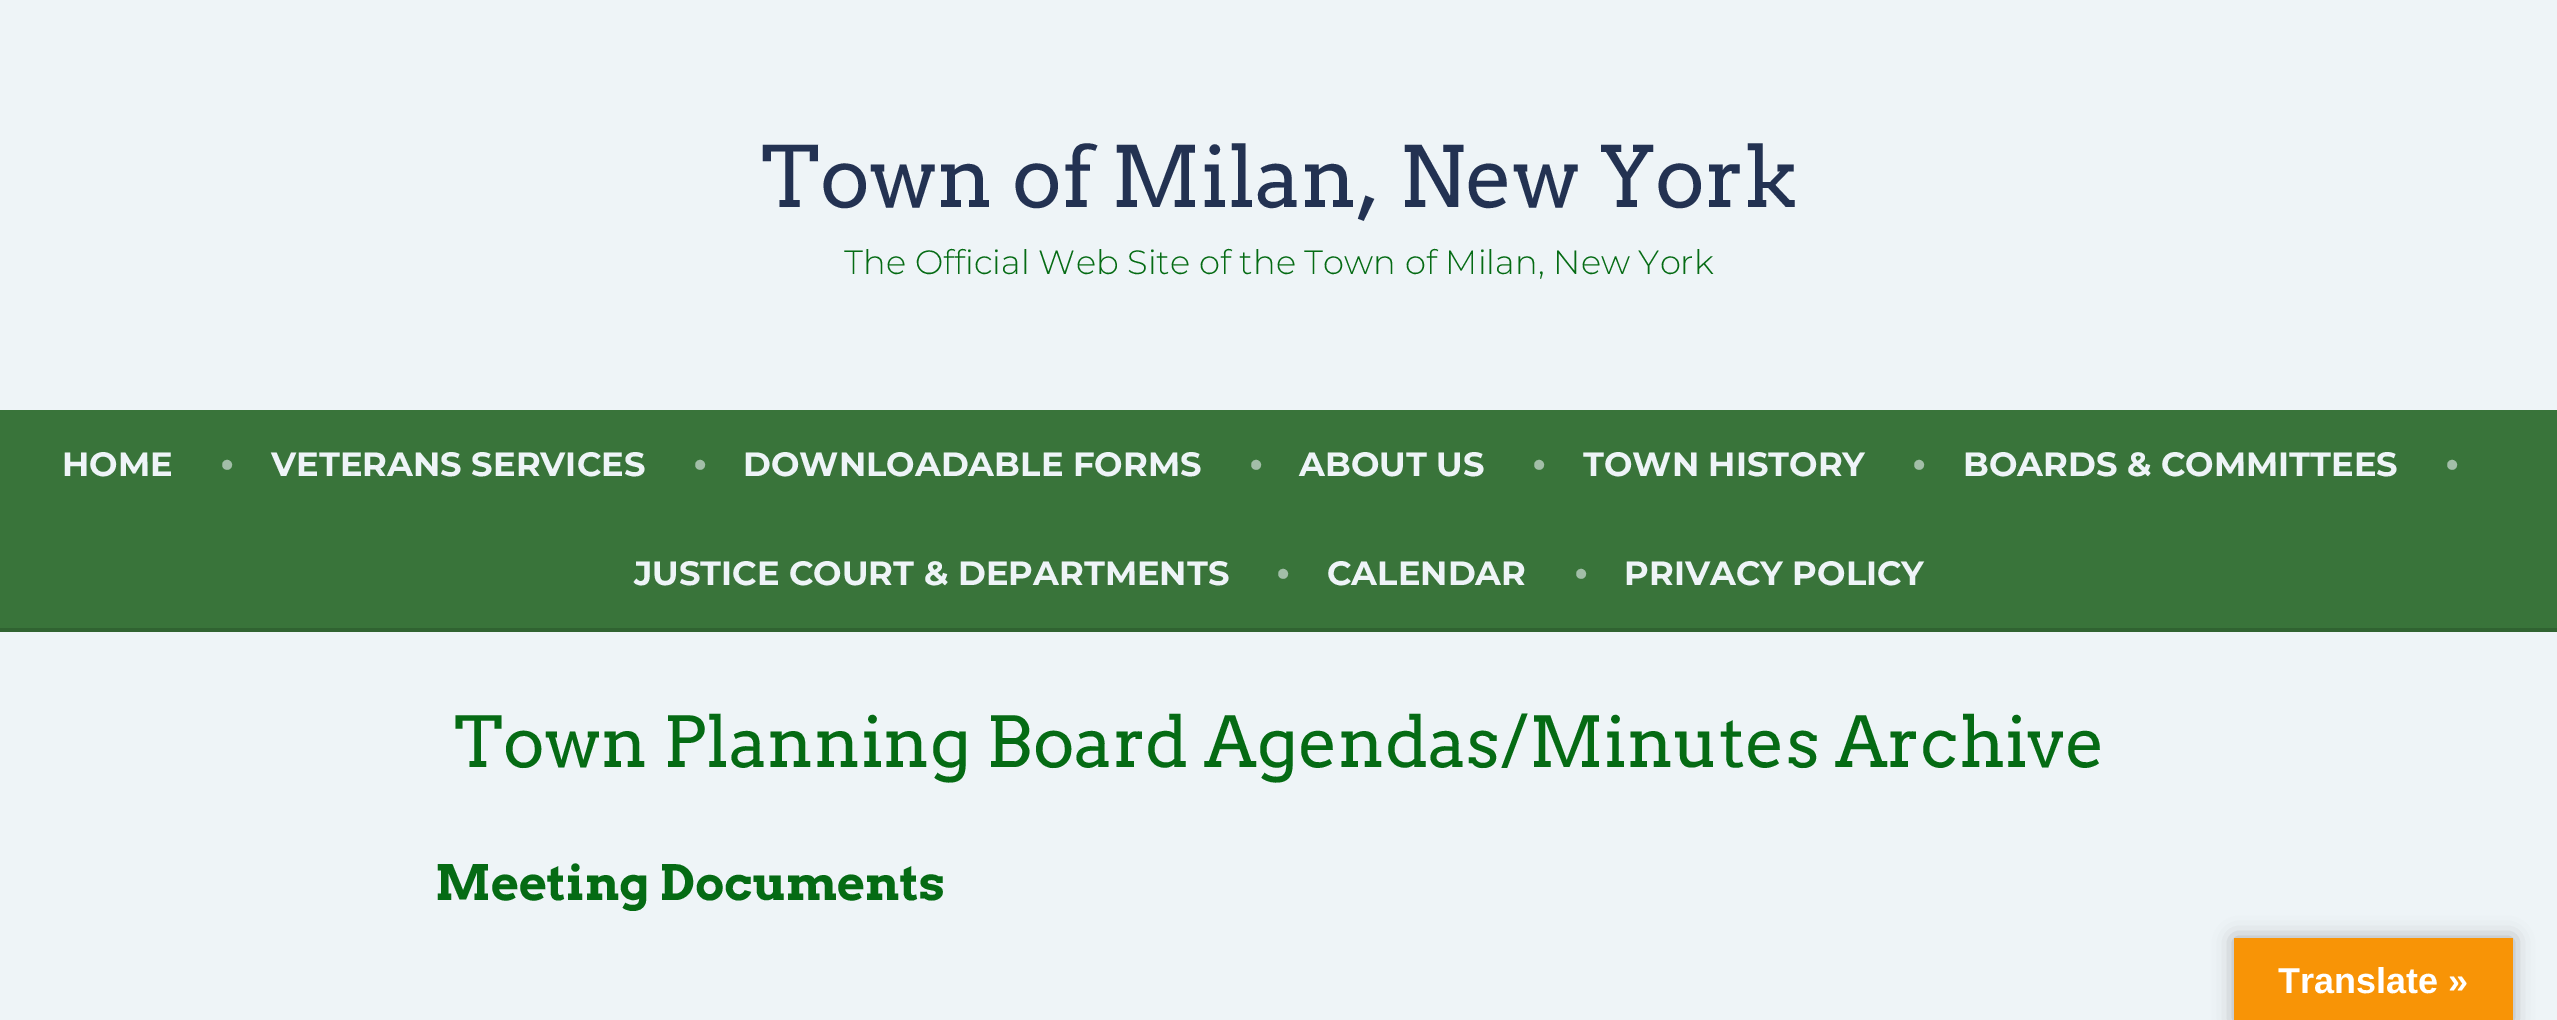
%!PS
<< /PageSize [2557 1020] /PageUsesTransparency true >> setpagedevice
/rgb { dup -16 bitshift 255 div exch dup -8 bitshift 255 and 255 div exch 255 and 255 div setrgbcolor } def
/font { [ exch dup neg 0 0 3 -1 roll 0 0 ] selectfont } def
/text { moveto show } def
/alpha { dup .setfillconstantalpha .setstrokeconstantalpha } def
/roundrect { 5 dict begin { /r /h /w /y /x } { exch def } forall
  x r add y moveto x w add y 2 copy h add r arct x w add y h add x 1 index r arct
  x y h add x y r arct x y 2 copy exch w add exch r arct closepath end } def
/shadow { 12 dict begin { /a /b /q /h /w /y /x } { exch def } forall gsave /was 0 def
  9 -2 -9 { dup b mul 4 div /e exch def 1 sub .425 mul 2.718 exch exp 1 add a .99 .min exch div /now exch def
    1 1 now sub 1 was sub div sub alpha /was now def
    w h .min e 2 mul add 0 gt { x e sub y e sub w e 2 mul add h e 2 mul add
      q e add b .6 mul add w h .min 2 div e add .min 0 .max roundrect fill } if } for grestore end } def
0 .pushpdf14devicefilter
0 1020 translate 1 -1 scale
4 setmiterlimit
/s1 { /Arvo-Regular 84 font 16#233252 rgb } def
/s2 { /Montserrat-Light 33.75 font 16#056B14 rgb } def
/s3 { /Montserrat-Bold 33.75 font 16#EEF4F7 rgb } def
/s4 { /Montserrat-Bold 40 font 16#A2BEA8 rgb } def
/s5 { /Arvo-Regular 70 font 16#056B14 rgb } def
/s6 { /Arvo-Bold 48.6 font 16#056B14 rgb } def
/s7 { /LiberationSans-Bold 36 font 16#FFFFFF rgb } def
16#EEF4F7 rgb
0 0 2557 1020 rectfill
s1
(Town of Milan, New York) 761 207 text
s2
(The Official Web Site of the Town of Milan, New York) 844 274 text
16#39743A rgb
0 410 2557 218 rectfill
16#306331 rgb
0 628 2557 4 rectfill
s3
(HOME) 62 476 text
s4
(•) 220 476 text
s3
(VETERANS SERVICES) 271 476 text
s4
(•) 693 476 text
s3
(DOWNLOADABLE FORMS) 743 476 text
s4
(•) 1249 476 text
s3
(ABOUT US) 1299 476 text
s4
(•) 1532 476 text
s3
(TOWN HISTORY) 1583 476 text
s4
(•) 1912 476 text
s3
(BOARDS & COMMITTEES) 1963 476 text
s4
(•) 2445 476 text
s3
(JUSTICE COURT & DEPARTMENTS) 634 585 text
s4
(•) 1276 585 text
s3
(CALENDAR) 1327 585 text
s4
(•) 1574 585 text
s3
(PRIVACY POLICY) 1624 585 text
s5
(Town Planning Board Agendas/Minutes Archive) 454 767 text
s6
(Meeting Documents) 435 900 text
16#000000 rgb
2234 938 279 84 0 10 0.3 shadow
16#F89406 rgb
2234 938 279 82 rectfill
s7
(Translate ») 2278 993 text
.poppdf14devicefilter showpage
